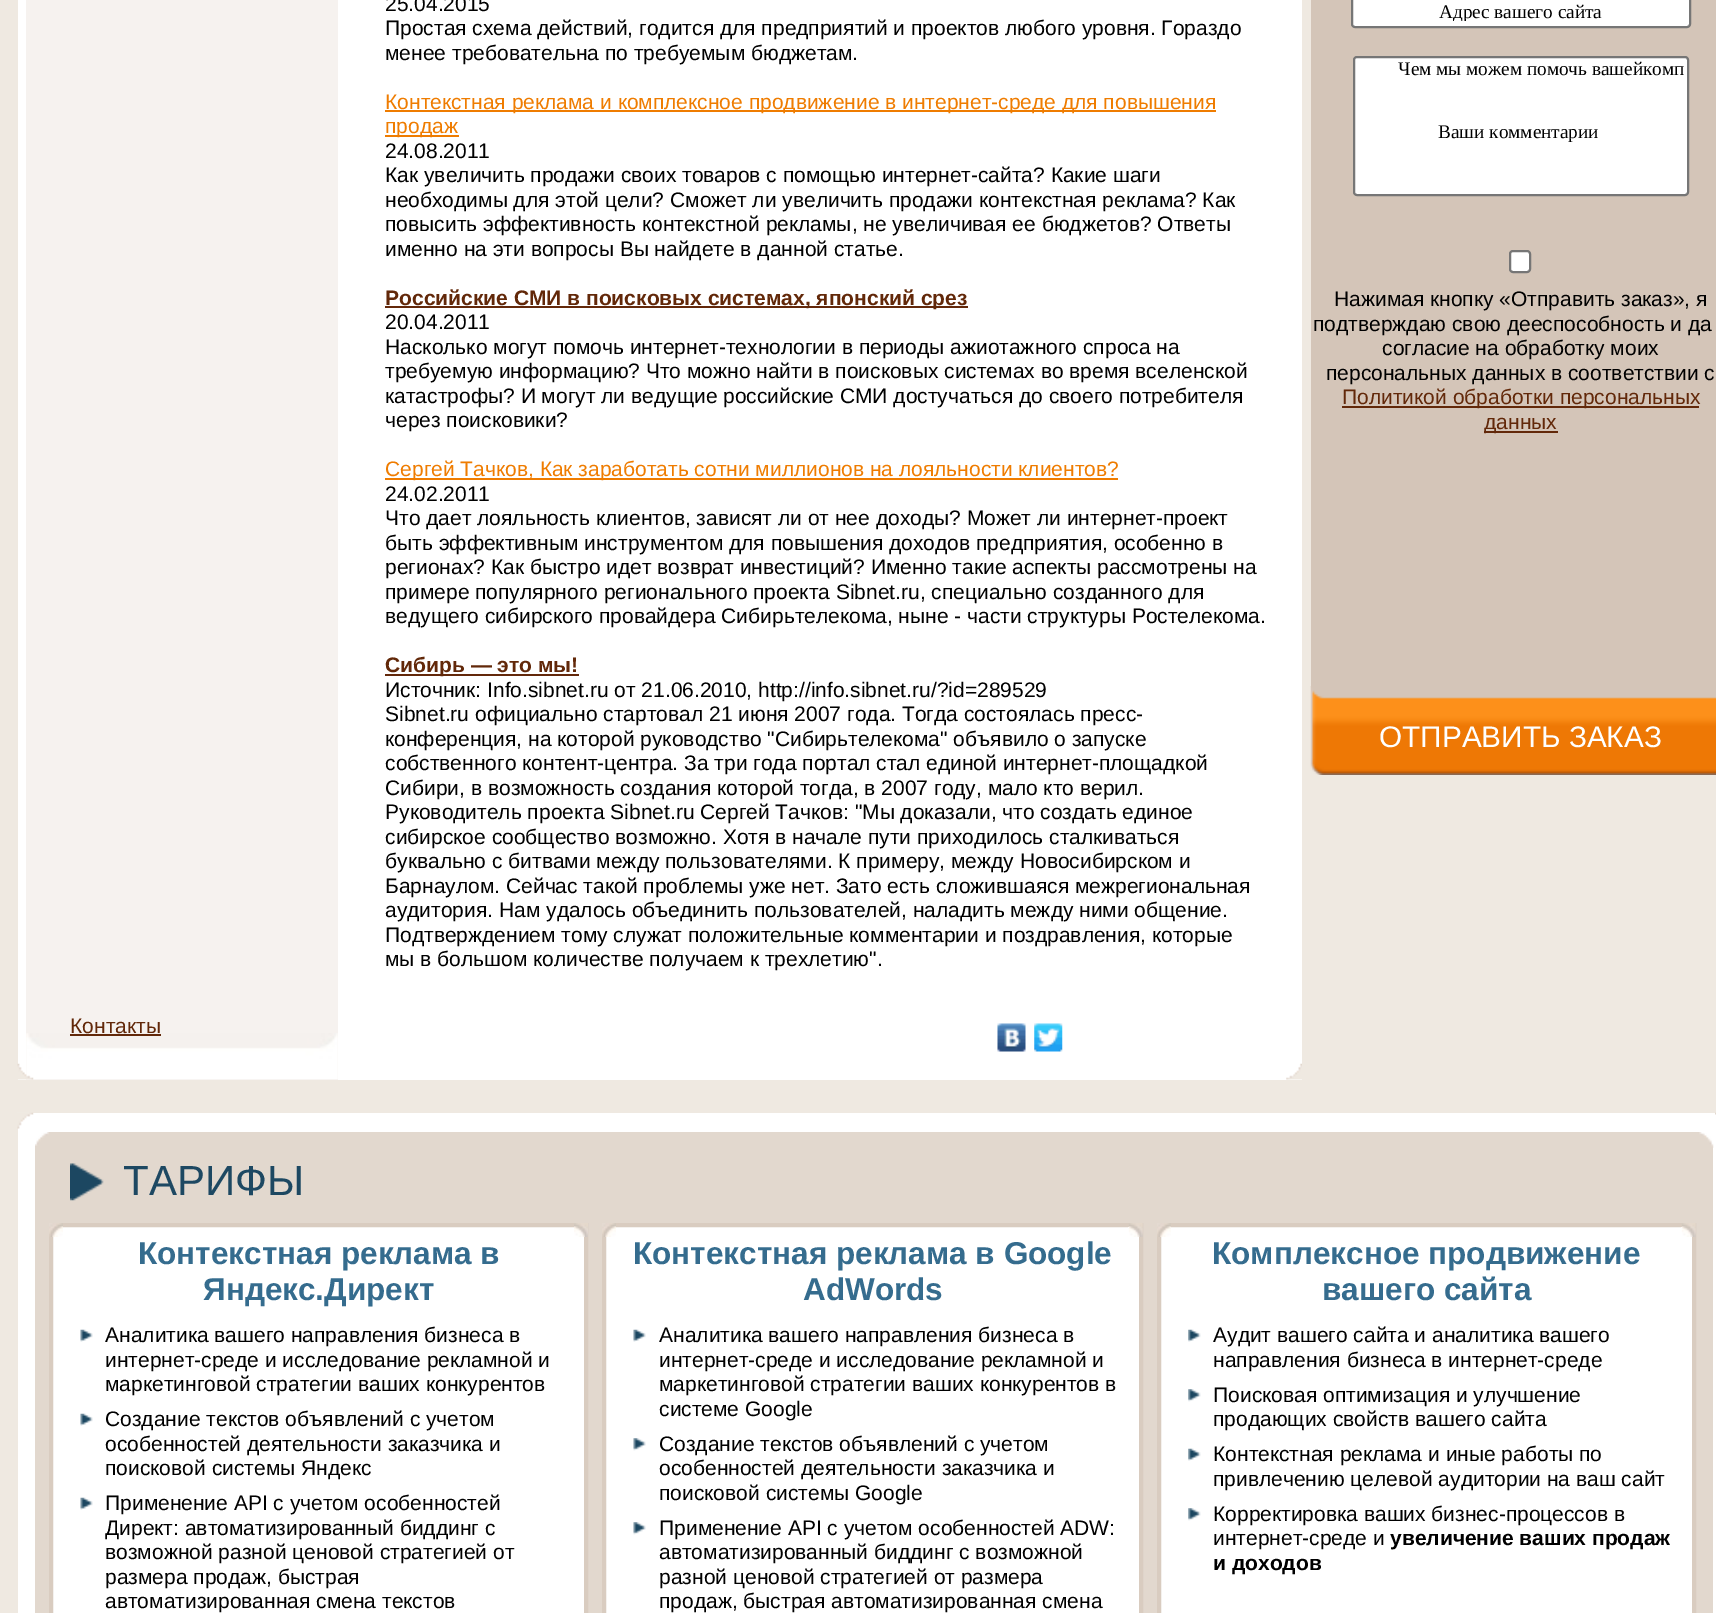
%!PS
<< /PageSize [1716 1613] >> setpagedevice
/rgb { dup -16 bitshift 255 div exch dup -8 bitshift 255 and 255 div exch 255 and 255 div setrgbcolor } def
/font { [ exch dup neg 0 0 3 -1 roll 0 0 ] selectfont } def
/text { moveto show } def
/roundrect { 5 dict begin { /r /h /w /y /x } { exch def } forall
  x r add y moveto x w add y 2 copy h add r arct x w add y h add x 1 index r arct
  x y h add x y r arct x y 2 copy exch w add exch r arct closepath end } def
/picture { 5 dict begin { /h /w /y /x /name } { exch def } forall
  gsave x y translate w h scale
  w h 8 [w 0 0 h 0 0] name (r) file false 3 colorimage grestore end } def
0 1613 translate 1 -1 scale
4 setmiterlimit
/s1 { /LiberationSans-Regular 21 font 16#000000 rgb } def
/s2 { /LiberationSans-Regular 21 font 16#EF7C00 rgb } def
/s3 { /LiberationSans-Bold 21 font 16#622809 rgb } def
/s4 { /LiberationSans-Regular 21 font 16#622809 rgb } def
/s5 { /LiberationSerif-Regular 19.25 font 16#000000 rgb } def
/s6 { /LiberationSans-Regular 29.75 font 16#FFFFFF rgb } def
/s7 { /LiberationSans-Regular 42 font 16#1D4862 rgb } def
/s8 { /LiberationSans-Bold 31.5 font 16#356C8E rgb } def
/s9 { /LiberationSans-Bold 21 font 16#000000 rgb } def
16#EFE9E1 rgb
0 0 1716 1613 rectfill
16#FFFFFF rgb
18 0 1284 1080 rectfill
16#F6F2EF rgb
26 0 312 1080 rectfill
s1
(25.04.2015) 385 11 text
(Простая схема действий, годится для предприятий и проектов любого уровня. Гораздо) 385 35 text
(менее требовательна по требуемым бюджетам.) 385 60 text
16#EF7C00 rgb
385 110 831 2 rectfill
(Контекстная реклама и комплексное продвижение в интернет-среде для повышения) 385 109 text
385 135 74 2 rectfill
(продаж) 385 133 text
s1
(24.08.2011) 385 158 text
(Как увеличить продажи своих товаров с помощью интернет-сайта? Какие шаги) 385 182 text
(необходимы для этой цели? Сможет ли увеличить продажи контекстная реклама? Как) 385 207 text
(повысить эффективность контекстной рекламы, не увеличивая ее бюджетов? Ответы) 385 231 text
(именно на эти вопросы Вы найдете в данной статье.) 385 256 text
16#63280A rgb
385 306 583 2 rectfill
s3
(Российские СМИ в поисковых системах, японский срез) 385 305 text
s1
(20.04.2011) 385 329 text
(Насколько могут помочь интернет-технологии в периоды ажиотажного спроса на) 385 354 text
(требуемую информацию? Что можно найти в поисковых системах во время вселенской) 385 378 text
(катастрофы? И могут ли ведущие российские СМИ достучаться до своего потребителя) 385 403 text
(через поисковики?) 385 427 text
16#EF7C00 rgb
385 478 733 2 rectfill
(Сергей Тачков, Как заработать сотни миллионов на лояльности клиентов?) 385 476 text
s1
(24.02.2011) 385 501 text
(Что дает лояльность клиентов, зависят ли от нее доходы? Может ли интернет-проект) 385 525 text
(быть эффективным инструментом для повышения доходов предприятия, особенно в) 385 550 text
(регионах? Как быстро идет возврат инвестиций? Именно такие аспекты рассмотрены на) 385 574 text
(примере популярного регионального проекта Sibnet.ru, специально созданного для) 385 599 text
(ведущего сибирского провайдера Сибирьтелекома, ныне - части структуры Ростелекома.) 385 623 text
16#63280A rgb
385 674 194 2 rectfill
s3
(Сибирь — это мы!) 385 672 text
s1
(Источник: Info.sibnet.ru от 21.06.2010, http://info.sibnet.ru/?id=289529) 385 697 text
(Sibnet.ru официально стартовал 21 июня 2007 года. Тогда состоялась пресс-) 385 721 text
(конференция, на которой руководство "Сибирьтелекома" объявило о запуске) 385 746 text
(собственного контент-центра. За три года портал стал единой интернет-площадкой) 385 770 text
(Сибири, в возможность создания которой тогда, в 2007 году, мало кто верил.) 385 795 text
(Руководитель проекта Sibnet.ru Сергей Тачков: "Мы доказали, что создать единое) 385 819 text
(сибирское сообщество возможно. Хотя в начале пути приходилось сталкиваться) 385 844 text
(буквально с битвами между пользователями. К примеру, между Новосибирском и) 385 868 text
(Барнаулом. Сейчас такой проблемы уже нет. Зато есть сложившаяся межрегиональная) 385 893 text
(аудитория. Нам удалось объединить пользователей, наладить между ними общение.) 385 917 text
(Подтверждением тому служат положительные комментарии и поздравления, которые) 385 942 text
(мы в большом количестве получаем к трехлетию".) 385 966 text
(pic1.raw) 26 1033 312 47 picture
s4
(Контакты) 70 1033 text
70 1034 91 2 rectfill
(pic2.raw) 997 1023 29 29 picture
(pic3.raw) 1034 1023 29 29 picture
(pic4.raw) 17 1063 17 17 picture
(pic5.raw) 1286 1063 16 17 picture
16#D4C5B8 rgb
1311 0 405 686 rectfill
16#FFFFFF rgb
1352 -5 338 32 3 roundrect gsave fill grestore
16#767676 rgb
2 setlinewidth
stroke
gsave
1355 0 332 21 rectclip
s5
(Адрес вашего сайта) 1439 18 text
grestore
16#FFFFFF rgb
1354 57 334 138 3 roundrect gsave fill grestore
16#767676 rgb
stroke
s5
(Чем мы можем помочь вашейкомп) 1398 75 text
(Ваши комментарии) 1438 138 text
16#FFFFFF rgb
1510 251 20 21 3 roundrect gsave fill grestore
16#767676 rgb
stroke
s1
(Нажимая кнопку «Отправить заказ», я) 1334 306 text
(подтверждаю свою дееспособность и да) 1313 331 text
(согласие на обработку моих) 1382 355 text
(персональных данных в соответствии с) 1326 380 text
16#622809 rgb
1342 406 357 2 rectfill
(Политикой обработки персональных) 1342 404 text
1484 431 74 2 rectfill
(данных) 1484 429 text
(pic6.raw) 1310 686 406 89 picture
s6
(ОТПРАВИТЬ ЗАКАЗ) 1379 747 text
18 1113 1698 500 rectfill
(pic7.raw) 17 1112 17 17 picture
(pic8.raw) 1715 1112 1 3 picture
16#E2D8CE rgb
35 1132 1678 481 rectfill
(pic9.raw) 35 1132 14 14 picture
(pic10.raw) 1699 1132 15 16 picture
(pic11.raw) 70 1163 34 38 picture
s7
(ТАРИФЫ) 123 1195 text
16#FFFFFF rgb
51 1225 moveto 586 1225 lineto 586 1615 lineto 51 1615 lineto closepath gsave fill grestore
16#D9CCC0 rgb
4 setlinewidth
stroke
(pic12.raw) 49 1223 14 14 picture
(pic13.raw) 574 1223 14 14 picture
s8
(Контекстная реклама в) 138 1264 text
(Яндекс.Директ) 203 1300 text
(pic14.raw) 80 1329 13 13 picture
s1
(Аналитика вашего направления бизнеса в) 105 1342 text
(интернет-среде и исследование рекламной и) 105 1367 text
(маркетинговой стратегии ваших конкурентов) 105 1391 text
(pic14.raw) 80 1413 13 13 picture
(Создание текстов объявлений с учетом) 105 1426 text
(особенностей деятельности заказчика и) 105 1451 text
(поисковой системы Яндекс) 105 1475 text
(pic14.raw) 80 1497 13 13 picture
(Применение API с учетом особенностей) 105 1510 text
(Директ: автоматизированный биддинг с) 105 1535 text
(возможной разной ценовой стратегией от) 105 1559 text
(размера продаж, быстрая) 105 1584 text
(автоматизированная смена текстов) 105 1608 text
16#FFFFFF rgb
604 1225 moveto 1141 1225 lineto 1141 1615 lineto 604 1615 lineto closepath gsave fill grestore
16#D9CCC0 rgb
stroke
(pic15.raw) 602 1223 14 14 picture
(pic16.raw) 1128 1223 15 14 picture
s8
(Контекстная реклама в Google) 633 1264 text
(AdWords) 803 1300 text
(pic17.raw) 633 1329 13 13 picture
s1
(Аналитика вашего направления бизнеса в) 659 1342 text
(интернет-среде и исследование рекламной и) 659 1367 text
(маркетинговой стратегии ваших конкурентов в) 659 1391 text
(системе Google) 659 1416 text
(pic18.raw) 633 1438 13 13 picture
(Создание текстов объявлений с учетом) 659 1451 text
(особенностей деятельности заказчика и) 659 1475 text
(поисковой системы Google) 659 1500 text
(pic18.raw) 633 1522 13 13 picture
(Применение API с учетом особенностей ADW:) 659 1535 text
(автоматизированный биддинг с возможной) 659 1559 text
(разной ценовой стратегией от размера) 659 1584 text
(продаж, быстрая автоматизированная смена) 659 1608 text
16#FFFFFF rgb
1159 1225 moveto 1694 1225 lineto 1694 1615 lineto 1159 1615 lineto closepath gsave fill grestore
16#D9CCC0 rgb
stroke
(pic19.raw) 1157 1223 14 14 picture
(pic16.raw) 1681 1223 15 14 picture
s8
(Комплексное продвижение) 1212 1264 text
(вашего сайта) 1322 1300 text
(pic20.raw) 1188 1329 13 13 picture
s1
(Аудит вашего сайта и аналитика вашего) 1213 1342 text
(направления бизнеса в интернет-среде) 1213 1367 text
(pic21.raw) 1188 1389 13 13 picture
(Поисковая оптимизация и улучшение) 1213 1402 text
(продающих свойств вашего сайта) 1213 1426 text
(pic20.raw) 1188 1448 13 13 picture
(Контекстная реклама и иные работы по) 1213 1461 text
(привлечению целевой аудитории на ваш сайт) 1213 1486 text
(pic21.raw) 1188 1508 13 13 picture
(Корректировка ваших бизнес-процессов в) 1213 1521 text
(интернет-среде и) 1213 1545 text
s9
(увеличение ваших продаж) 1390 1545 text
(и доходов) 1213 1570 text
showpage
